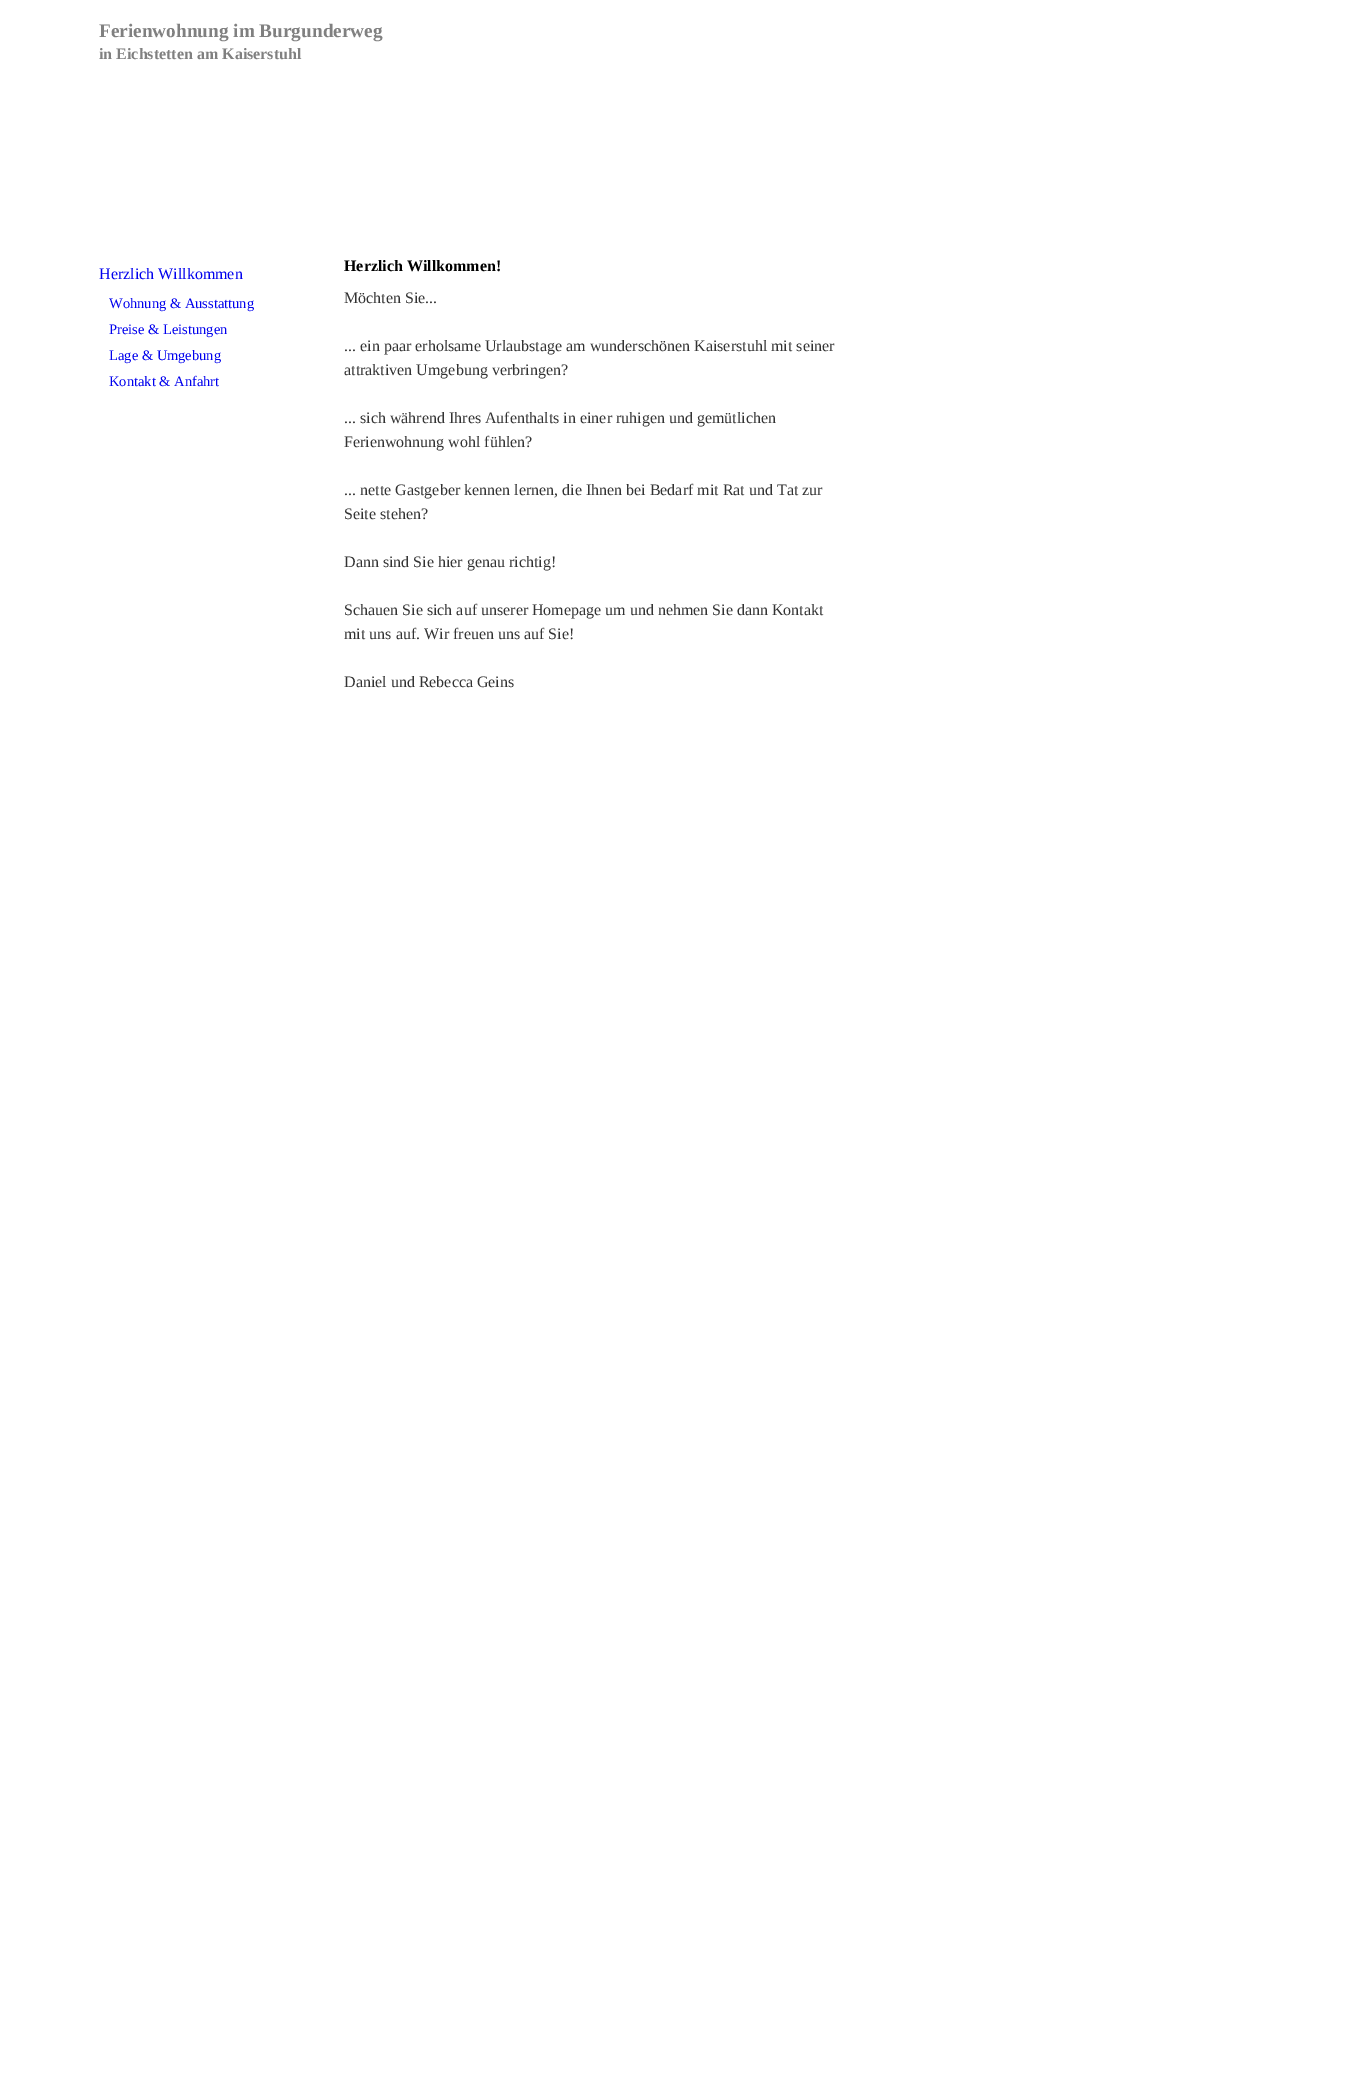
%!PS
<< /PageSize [1360 2077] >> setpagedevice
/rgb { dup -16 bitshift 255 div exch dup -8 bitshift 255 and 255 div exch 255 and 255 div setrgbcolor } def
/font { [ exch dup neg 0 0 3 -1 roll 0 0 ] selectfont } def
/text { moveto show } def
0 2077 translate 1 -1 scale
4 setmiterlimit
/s1 { /LiberationSerif-Bold 19.25 font 16#808080 rgb } def
/s2 { /LiberationSerif-Bold 16 font 16#808080 rgb } def
/s3 { /LiberationSerif-Regular 16 font 16#0000EE rgb } def
/s4 { /LiberationSerif-Regular 14.5 font 16#0000EE rgb } def
/s5 { /LiberationSerif-Bold 16 font 16#000000 rgb } def
/s6 { /LiberationSerif-Regular 16 font 16#333333 rgb } def
16#FFFFFF rgb
0 0 1360 2077 rectfill
s1
(Ferienwohnung im Burgunderweg) 99 37 text
s2
(in Eichstetten am Kaiserstuhl) 99 59 text
s3
(Herzlich Willkommen) 99 279 text
s4
(Wohnung & Ausstattung) 109 308 text
(Preise & Leistungen) 109 334 text
(Lage & Umgebung) 109 360 text
(Kontakt & Anfahrt) 109 386 text
s5
(Herzlich Willkommen!) 344 271 text
s6
(Möchten Sie...) 344 303 text
(... ein paar erholsame Urlaubstage am wunderschönen Kaiserstuhl mit seiner) 344 351 text
(attraktiven Umgebung verbringen?) 344 375 text
(... sich während Ihres Aufenthalts in einer ruhigen und gemütlichen) 344 423 text
(Ferienwohnung wohl fühlen?) 344 447 text
(... nette Gastgeber kennen lernen, die Ihnen bei Bedarf mit Rat und Tat zur) 344 495 text
(Seite stehen?) 344 519 text
(Dann sind Sie hier genau richtig!) 344 567 text
(Schauen Sie sich auf unserer Homepage um und nehmen Sie dann Kontakt) 344 615 text
(mit uns auf. Wir freuen uns auf Sie!) 344 639 text
(Daniel und Rebecca Geins) 344 687 text
showpage
